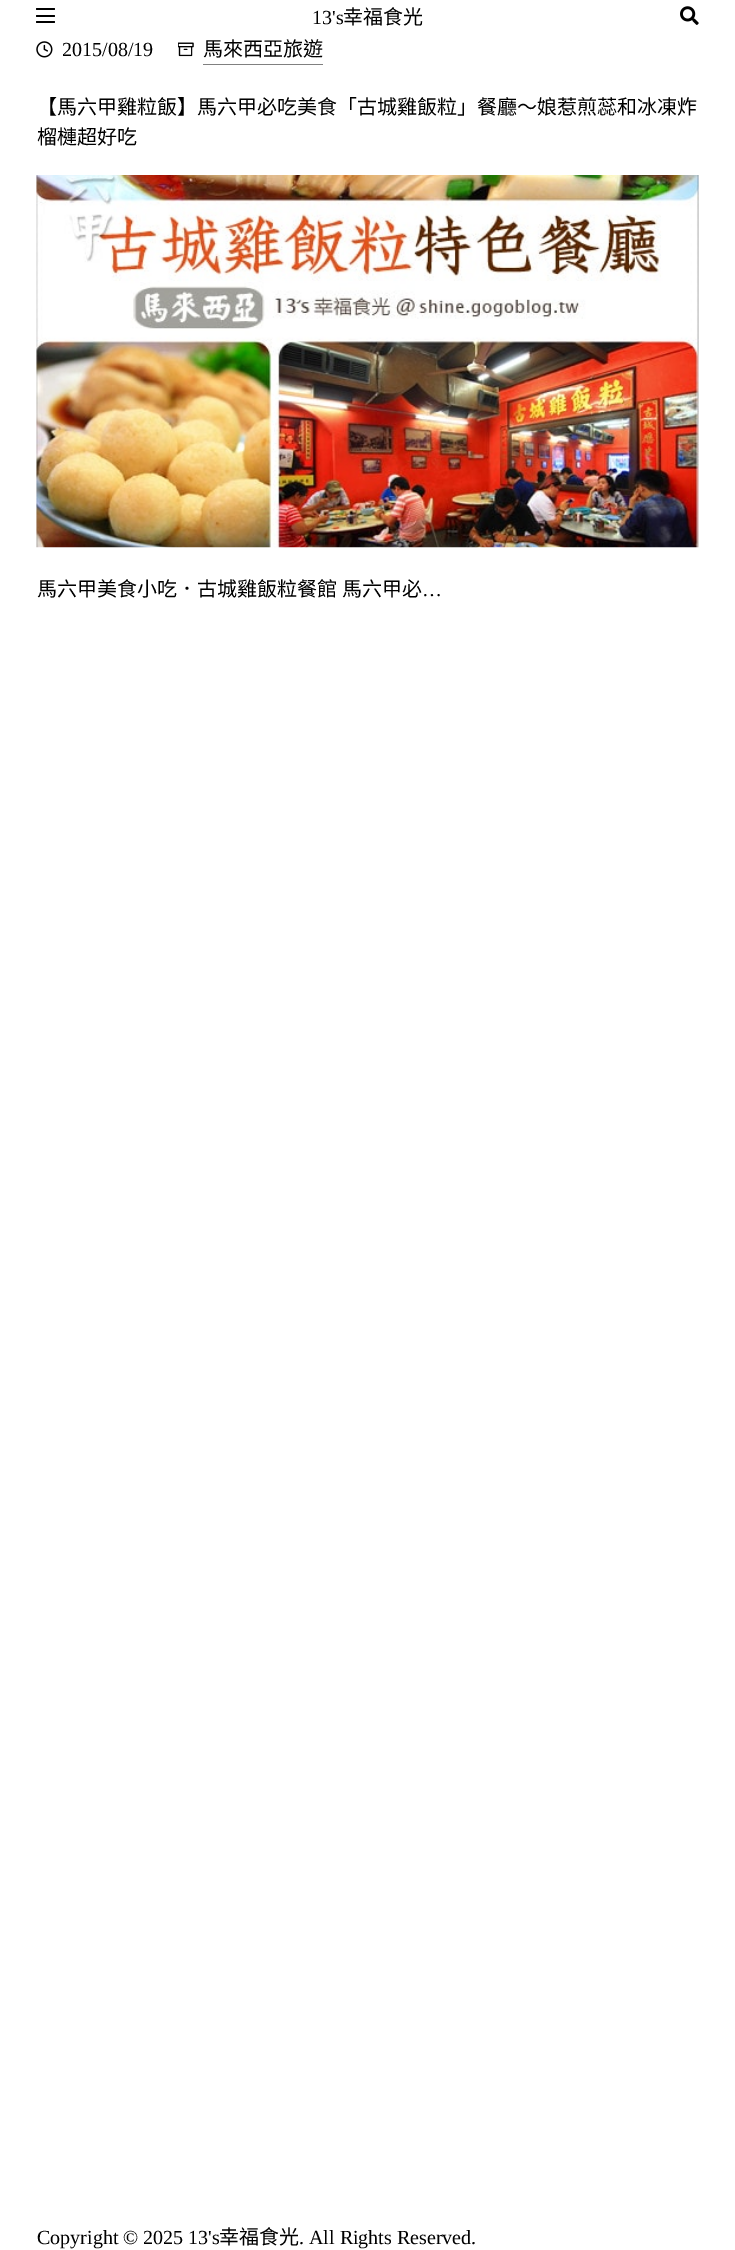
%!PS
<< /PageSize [735 2250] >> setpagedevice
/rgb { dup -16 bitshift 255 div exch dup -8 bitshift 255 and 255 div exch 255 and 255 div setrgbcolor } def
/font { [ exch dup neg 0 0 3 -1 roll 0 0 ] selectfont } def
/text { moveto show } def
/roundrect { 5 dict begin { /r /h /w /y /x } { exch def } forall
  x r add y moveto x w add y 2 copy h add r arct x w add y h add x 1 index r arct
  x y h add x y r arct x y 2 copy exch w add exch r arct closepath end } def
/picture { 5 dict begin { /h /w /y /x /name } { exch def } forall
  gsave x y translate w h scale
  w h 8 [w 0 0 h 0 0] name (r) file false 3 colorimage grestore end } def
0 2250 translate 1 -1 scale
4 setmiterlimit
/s1 { /LiberationSerif-Regular 20 font 16#000000 rgb } def
/s2 { /NotoSansCJKTC-Regular 20 font 16#000000 rgb } def
16#FFFFFF rgb
0 0 735 2250 rectfill
16#000000 rgb
36 8 19 2 1 roundrect fill
36 15 19 2 1 roundrect fill
36 21 19 2 1 roundrect fill
s1
(13's) 312 24 text
s2
(幸福食光) 343 24 text
(pic1.raw) 680 6 19 19 picture
(pic2.raw) 36 41 17 17 picture
s1
(2015/08/19) 62 56 text
(pic3.raw) 178 42 16 15 picture
s2
(馬來西亞旅遊) 203 56 text
16#808080 rgb
203 64 120 1 rectfill
s2
(【馬六甲雞粒飯】馬六甲必吃美食「古城雞飯粒」餐廳～娘惹煎蕊和冰凍炸) 37 114 text
(榴槤超好吃) 37 144 text
(pic4.raw) 36 175 663 373 picture
37 596 moveto 1 0 32 (馬六甲美食小吃．古城雞飯粒餐館 馬六甲必) widthshow
s1
(…) 422 596 text
(Copyright © 2025 13's) 37 2244 text
s2
(幸福食光) 219 2244 text
s1
(. All Rights Reserved.) 299 2244 text
showpage
